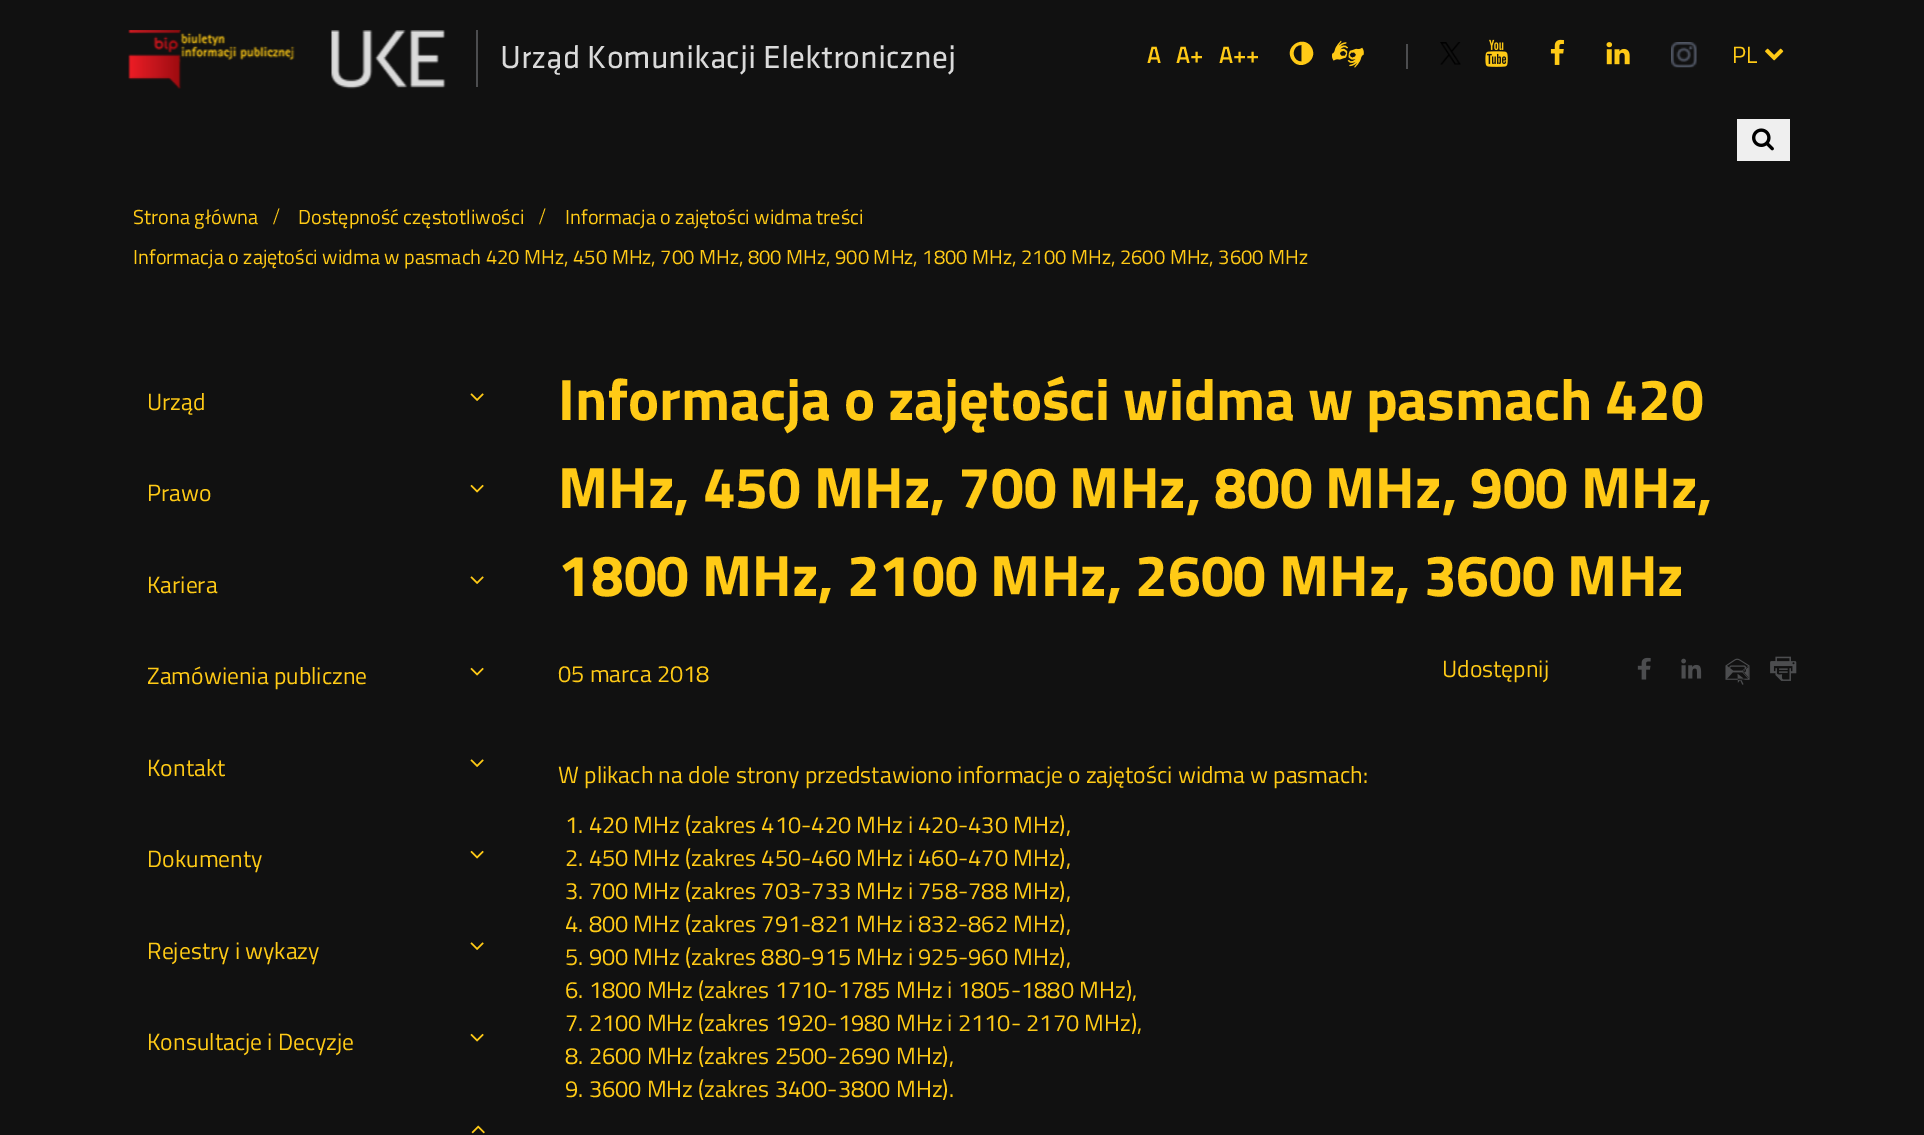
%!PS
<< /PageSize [1924 1135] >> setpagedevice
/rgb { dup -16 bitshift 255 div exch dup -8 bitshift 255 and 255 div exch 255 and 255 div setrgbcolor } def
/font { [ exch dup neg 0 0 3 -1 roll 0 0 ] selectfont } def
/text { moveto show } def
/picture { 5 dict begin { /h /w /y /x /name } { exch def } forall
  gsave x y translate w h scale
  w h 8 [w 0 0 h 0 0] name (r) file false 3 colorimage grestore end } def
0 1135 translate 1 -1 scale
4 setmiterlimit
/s1 { /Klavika-Regular 33.1 font 16#DADADA rgb } def
/s2 { /TitilliumWeb-SemiBold 23.6 font 16#FFCA16 rgb } def
/s3 { /TitilliumWeb-Regular 23.6 font 16#FFCA16 rgb } def
/s4 { /TitilliumWeb-Regular 20.25 font 16#FFCA16 rgb } def
/s5 { /LiberationSerif-Regular 23.6 font 16#FFCA16 rgb } def
/s6 { /TitilliumWeb-Bold 58.5 font 16#FFCA16 rgb } def
16#111111 rgb
0 0 1924 1135 rectfill
(pic1.raw) 128 30 167 59 picture
(pic2.raw) 331 30 115 59 picture
16#4C4D4F rgb
476 30 2 57 rectfill
s1
(Urząd Komunikacji Elektronicznej) 500 68 text
s2
(A) 1147 63 text
(A+) 1176 63 text
(A++) 1219 63 text
1301.5 61.5 moveto 1301.5 45 lineto 1291 45 1291 61.5 1301.5 61.5 curveto closepath 1311.5 47.5 moveto 1319 60.5 1299 72.5 1291.5 59 curveto 1284 46 1304 34.5 1311.5 47.5 curveto closepath fill
(pic3.raw) 1331 40 33 28 picture
16#4C4D4F rgb
1406 44 2 25 rectfill
(pic4.raw) 1440 42 21 23 picture
(pic5.raw) 1485 39 23 28 picture
(pic6.raw) 1550 39 14 26 picture
(pic7.raw) 1606 42 24 23 picture
(pic8.raw) 1671 42 26 26 picture
s3
(PL) 1732 63 text
(pic9.raw) 1765 48 19 13 picture
16#EFEFEF rgb
1737 119 53 42 rectfill
(pic10.raw) 1752 128 22 23 picture
s4
(Strona główna) 133 224 text
s5
(/) 273 224 text
s4
(Dostępność częstotliwości) 298 224 text
s5
(/) 539 224 text
s4
(Informacja o zajętości widma treści) 565 224 text
(Informacja o zajętości widma w pasmach 420 MHz, 450 MHz, 700 MHz, 800 MHz, 900 MHz, 1800 MHz, 2100 MHz, 2600 MHz, 3600 MHz) 133 264 text
s3
(Urząd) 147 410 text
(pic11.raw) 470 393 14 8 picture
(Prawo) 147 501 text
(pic12.raw) 470 484 14 9 picture
(Kariera) 147 593 text
(pic11.raw) 470 576 14 8 picture
(Zamówienia publiczne) 147 684 text
(pic12.raw) 470 667 14 9 picture
(Kontakt) 147 776 text
(pic11.raw) 470 759 14 8 picture
(Dokumenty) 147 867 text
(pic12.raw) 470 850 14 9 picture
(Rejestry i wykazy) 147 959 text
(pic11.raw) 470 942 14 8 picture
(Konsultacje i Decyzje) 147 1050 text
(pic12.raw) 470 1033 14 9 picture
(pic13.raw) 471 1125 14 9 picture
s6
(Informacja o zajętości widma w pasmach 420) 558 420 text
(MHz, 450 MHz, 700 MHz, 800 MHz, 900 MHz,) 558 508 text
(1800 MHz, 2100 MHz, 2600 MHz, 3600 MHz) 558 596 text
s3
(05 marca 2018) 558 682 text
(Udostępnij) 1442 677 text
(pic14.raw) 1637 657 14 23 picture
(pic15.raw) 1681 658 21 21 picture
(pic16.raw) 1725 658 25 27 picture
(pic17.raw) 1770 656 27 25 picture
(W plikach na dole strony przedstawiono informacje o zajętości widma w pasmach:) 558 783 text
(1. 420 MHz \(zakres 410-420 MHz i 420-430 MHz\),) 565 833 text
(2. 450 MHz \(zakres 450-460 MHz i 460-470 MHz\),) 565 866 text
(3. 700 MHz \(zakres 703-733 MHz i 758-788 MHz\),) 565 899 text
(4. 800 MHz \(zakres 791-821 MHz i 832-862 MHz\),) 565 932 text
(5. 900 MHz \(zakres 880-915 MHz i 925-960 MHz\),) 565 965 text
(6. 1800 MHz \(zakres 1710-1785 MHz i 1805-1880 MHz\),) 565 998 text
(7. 2100 MHz \(zakres 1920-1980 MHz i 2110- 2170 MHz\),) 565 1031 text
(8. 2600 MHz \(zakres 2500-2690 MHz\),) 565 1064 text
(9. 3600 MHz \(zakres 3400-3800 MHz\).) 565 1097 text
showpage
